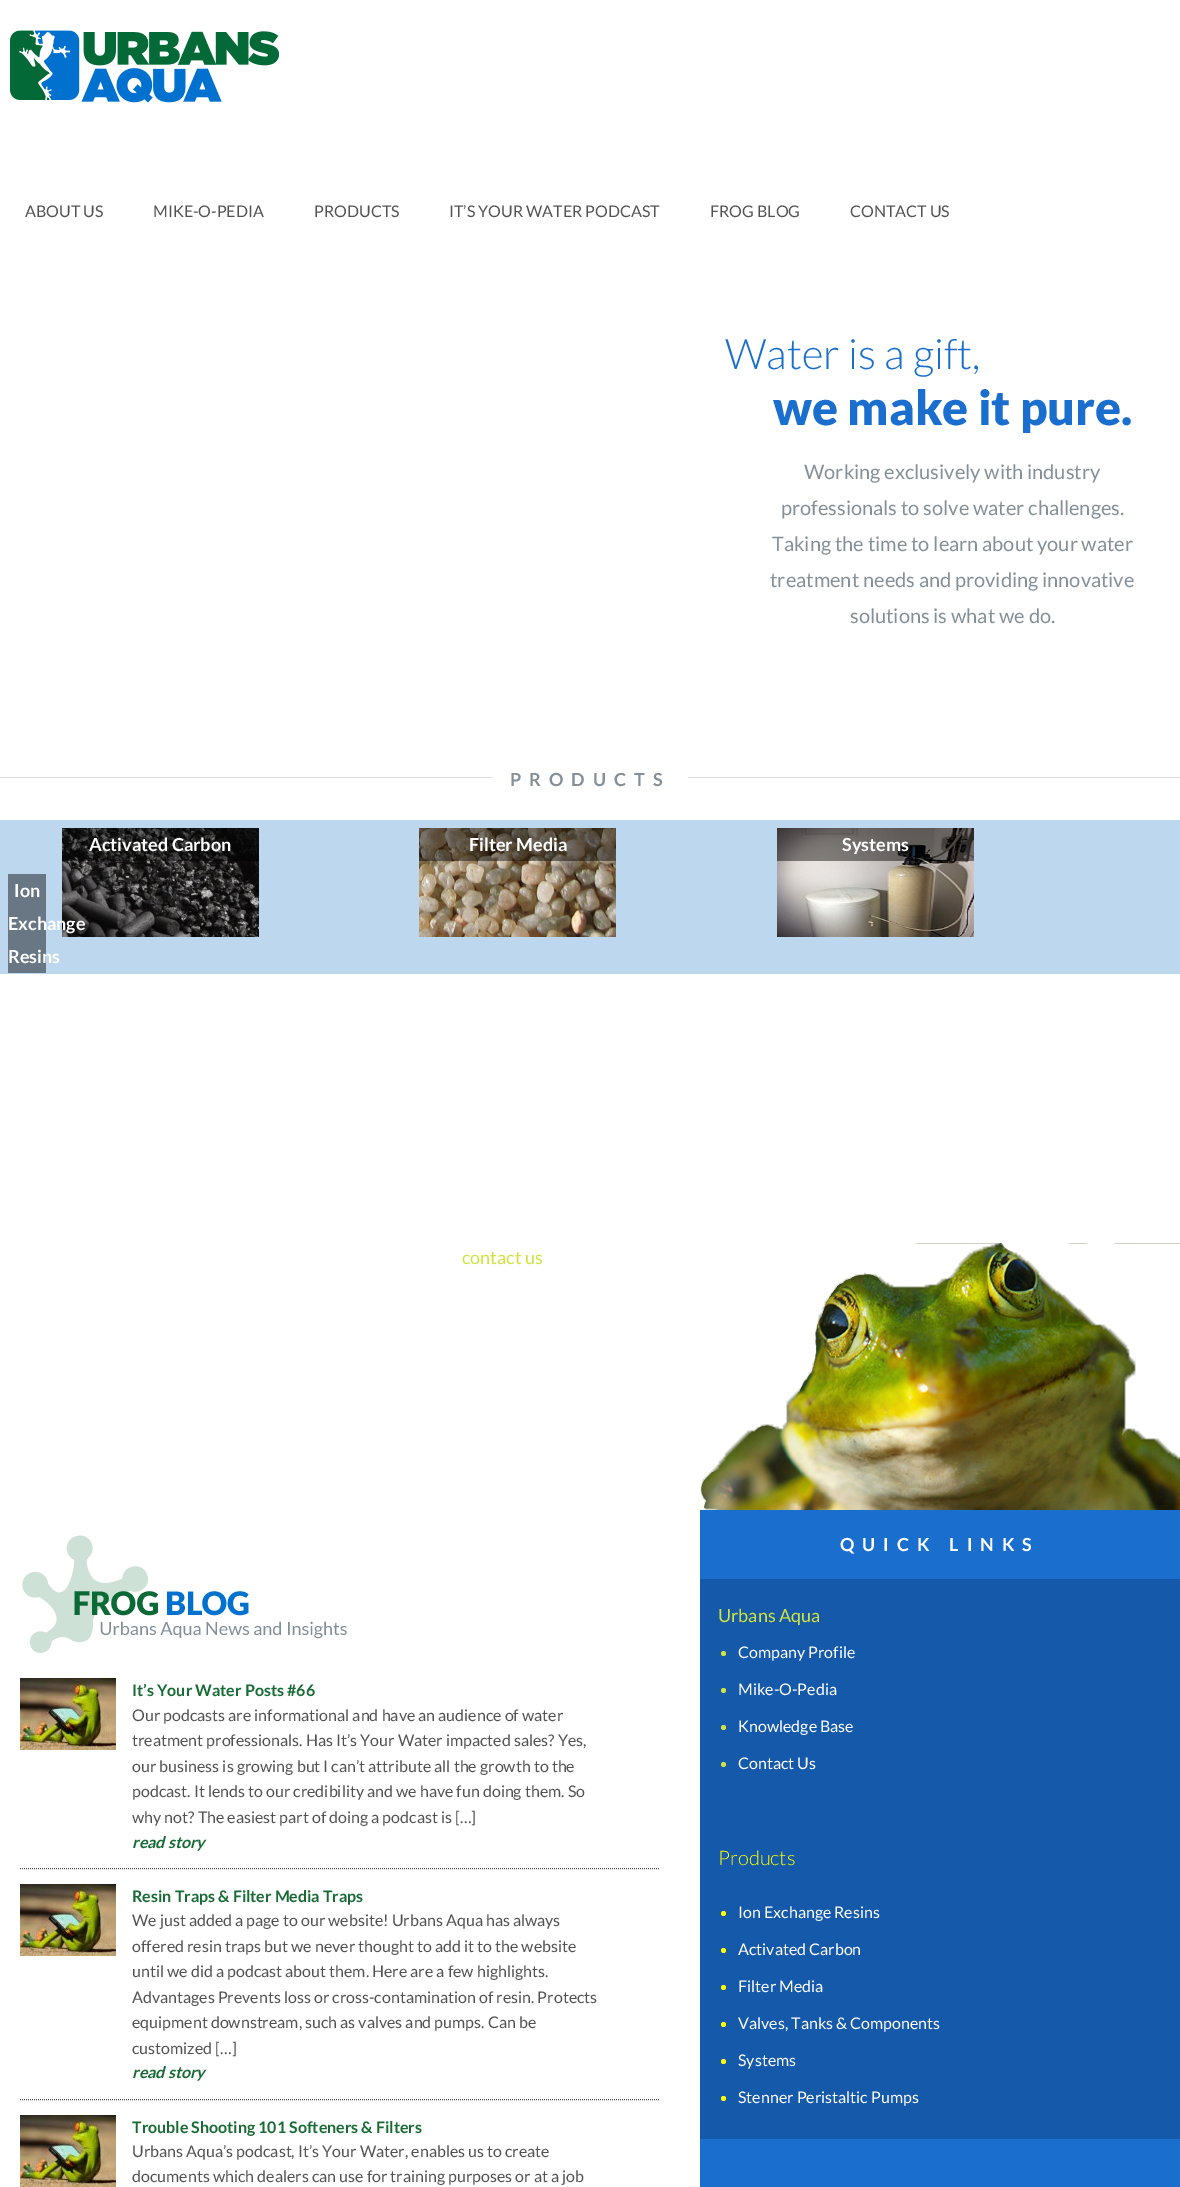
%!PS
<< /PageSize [1180 2187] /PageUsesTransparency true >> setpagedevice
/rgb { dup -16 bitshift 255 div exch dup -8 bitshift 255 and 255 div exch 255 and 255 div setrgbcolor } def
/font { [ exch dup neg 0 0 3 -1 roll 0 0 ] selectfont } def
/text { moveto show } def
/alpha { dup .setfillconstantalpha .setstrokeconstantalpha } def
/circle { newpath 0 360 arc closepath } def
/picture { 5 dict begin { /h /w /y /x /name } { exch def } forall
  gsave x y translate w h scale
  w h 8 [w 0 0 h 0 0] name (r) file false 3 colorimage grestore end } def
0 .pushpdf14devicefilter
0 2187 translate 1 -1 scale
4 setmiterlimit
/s1 { /Lato-Regular 16 font 16#525252 rgb } def
/s2 { /Lato-Light 42 font 16#1A6ECD rgb } def
/s3 { /Lato-Black 48 font 16#1A6ECD rgb } def
/s4 { /Lato-Regular 20 font 16#848F97 rgb } def
/s5 { /Lato-Bold 18 font 16#FFFFFF rgb } def
/s6 { /Lato-Regular 18 font 16#D0E23F rgb } def
/s7 { /Lato-Bold 16 font 16#196B36 rgb } def
/s8 { /Lato-BoldItalic 16 font 16#196B36 rgb } def
/s9 { /Lato-Regular 16 font 16#FFFFFF rgb } def
/s10 { /Lato-Light 20 font 16#FFFF00 rgb } def
16#FFFFFF rgb
0 0 1180 2187 rectfill
(pic1.raw) 10 30 269 73 picture
s1
(ABOUT US) 25 217 text
(MIKE-O-PEDIA) 153 217 text
(PRODUCTS) 314 217 text
(IT’S YOUR WATER PODCAST) 449 217 text
(FROG BLOG) 710 217 text
(CONTACT US) 850 217 text
s2
(Water is a gift,) 725 369 text
s3
(we make it pure.) 773 425 text
s4
(Working exclusively with industry) 804 479 text
(professionals to solve water challenges.) 781 515 text
(Taking the time to learn about your water) 772 551 text
(treatment needs and providing innovative) 770 587 text
(solutions is what we do.) 850 623 text
16#DADDE0 rgb
0 777 492 1 rectfill
/Lato-Bold 18 font
16#848F97 rgb
510 786 moveto 8 0 (PRODUCTS) ashow
16#DADDE0 rgb
688 777 492 1 rectfill
16#BDD8EE rgb
0 820 1180 154 rectfill
(pic2.raw) 62 828 197 109 picture
0.45 alpha
16#000000 rgb
62 828 197 33 rectfill
1 alpha
s5
(Activated Carbon) 89 851 text
(pic3.raw) 419 828 197 109 picture
0.45 alpha
16#000000 rgb
419 828 197 33 rectfill
1 alpha
s5
(Filter Media) 469 851 text
(pic4.raw) 777 828 197 109 picture
0.45 alpha
16#000000 rgb
777 828 197 33 rectfill
1 alpha
s5
(Systems) 842 851 text
16#687783 rgb
8 874 38 99 rectfill
s5
(Ion) 14 897 text
(Exchange) 8 930 text
(Resins) 8 963 text
s6
(contact us) 462 1264 text
(pic5.raw) 700 1243 480 267 picture
(pic6.raw) 22 1535 325 118 picture
16#525252 rgb
[1 1] 0 setdash
20 1868.5 moveto 660 1868.5 lineto stroke
(pic7.raw) 20 1678 96 72 picture
s7
(It’s Your Water Posts #66) 132 1696 text
s1
(Our podcasts are informational and have an audience of water) 132 1721 text
(treatment professionals. Has It’s Your Water impacted sales? Yes,) 132 1746 text
(our business is growing but I can’t attribute all the growth to the) 132 1772 text
(podcast. It lends to our credibility and we have fun doing them. So) 132 1797 text
(why not? The easiest part of doing a podcast is […]) 132 1823 text
s8
(read story) 132 1848 text
16#525252 rgb
20 2099.5 moveto 660 2099.5 lineto stroke
(pic7.raw) 20 1884 96 72 picture
s7
(Resin Traps & Filter Media Traps) 132 1902 text
s1
(We just added a page to our website! Urbans Aqua has always) 132 1926 text
(offered resin traps but we never thought to add it to the website) 132 1952 text
(until we did a podcast about them. Here are a few highlights.) 132 1977 text
(Advantages Prevents loss or cross-contamination of resin. Protects) 132 2003 text
(equipment downstream, such as valves and pumps. Can be) 132 2028 text
(customized […]) 132 2054 text
s8
(read story) 132 2078 text
(pic7.raw) 20 2115 96 72 picture
s7
(Trouble Shooting 101 Softeners & Filters) 132 2133 text
s1
(Urbans Aqua’s podcast, It’s Your Water, enables us to create) 132 2157 text
(documents which dealers can use for training purposes or at a job) 132 2182 text
16#1A6ECD rgb
700 1510 480 677 rectfill
/Lato-Bold 18 font
16#FFFFFF rgb
840 1551 moveto 8 0 (QUICK LINKS) ashow
16#1559AA rgb
700 1579 480 560 rectfill
s6
(Urbans Aqua) 718 1622 text
723.5 1653.5 2.5 circle fill
s9
(Company Profile) 738 1658 text
16#D0E23F rgb
723.5 1690.5 2.5 circle fill
s9
(Mike-O-Pedia) 738 1695 text
16#D0E23F rgb
723.5 1727.5 2.5 circle fill
s9
(Knowledge Base) 738 1732 text
16#D0E23F rgb
723.5 1764.5 2.5 circle fill
s9
(Contact Us) 738 1769 text
s10
(Products) 718 1865 text
723.5 1913.5 2.5 circle fill
s9
(Ion Exchange Resins) 738 1918 text
16#FFFF00 rgb
723.5 1950.5 2.5 circle fill
s9
(Activated Carbon) 738 1955 text
16#FFFF00 rgb
723.5 1987.5 2.5 circle fill
s9
(Filter Media) 738 1992 text
16#FFFF00 rgb
723.5 2024.5 2.5 circle fill
s9
(Valves, Tanks & Components) 738 2029 text
16#FFFF00 rgb
723.5 2061.5 2.5 circle fill
s9
(Systems) 738 2066 text
16#FFFF00 rgb
723.5 2098.5 2.5 circle fill
s9
(Stenner Peristaltic Pumps) 738 2103 text
.poppdf14devicefilter showpage
